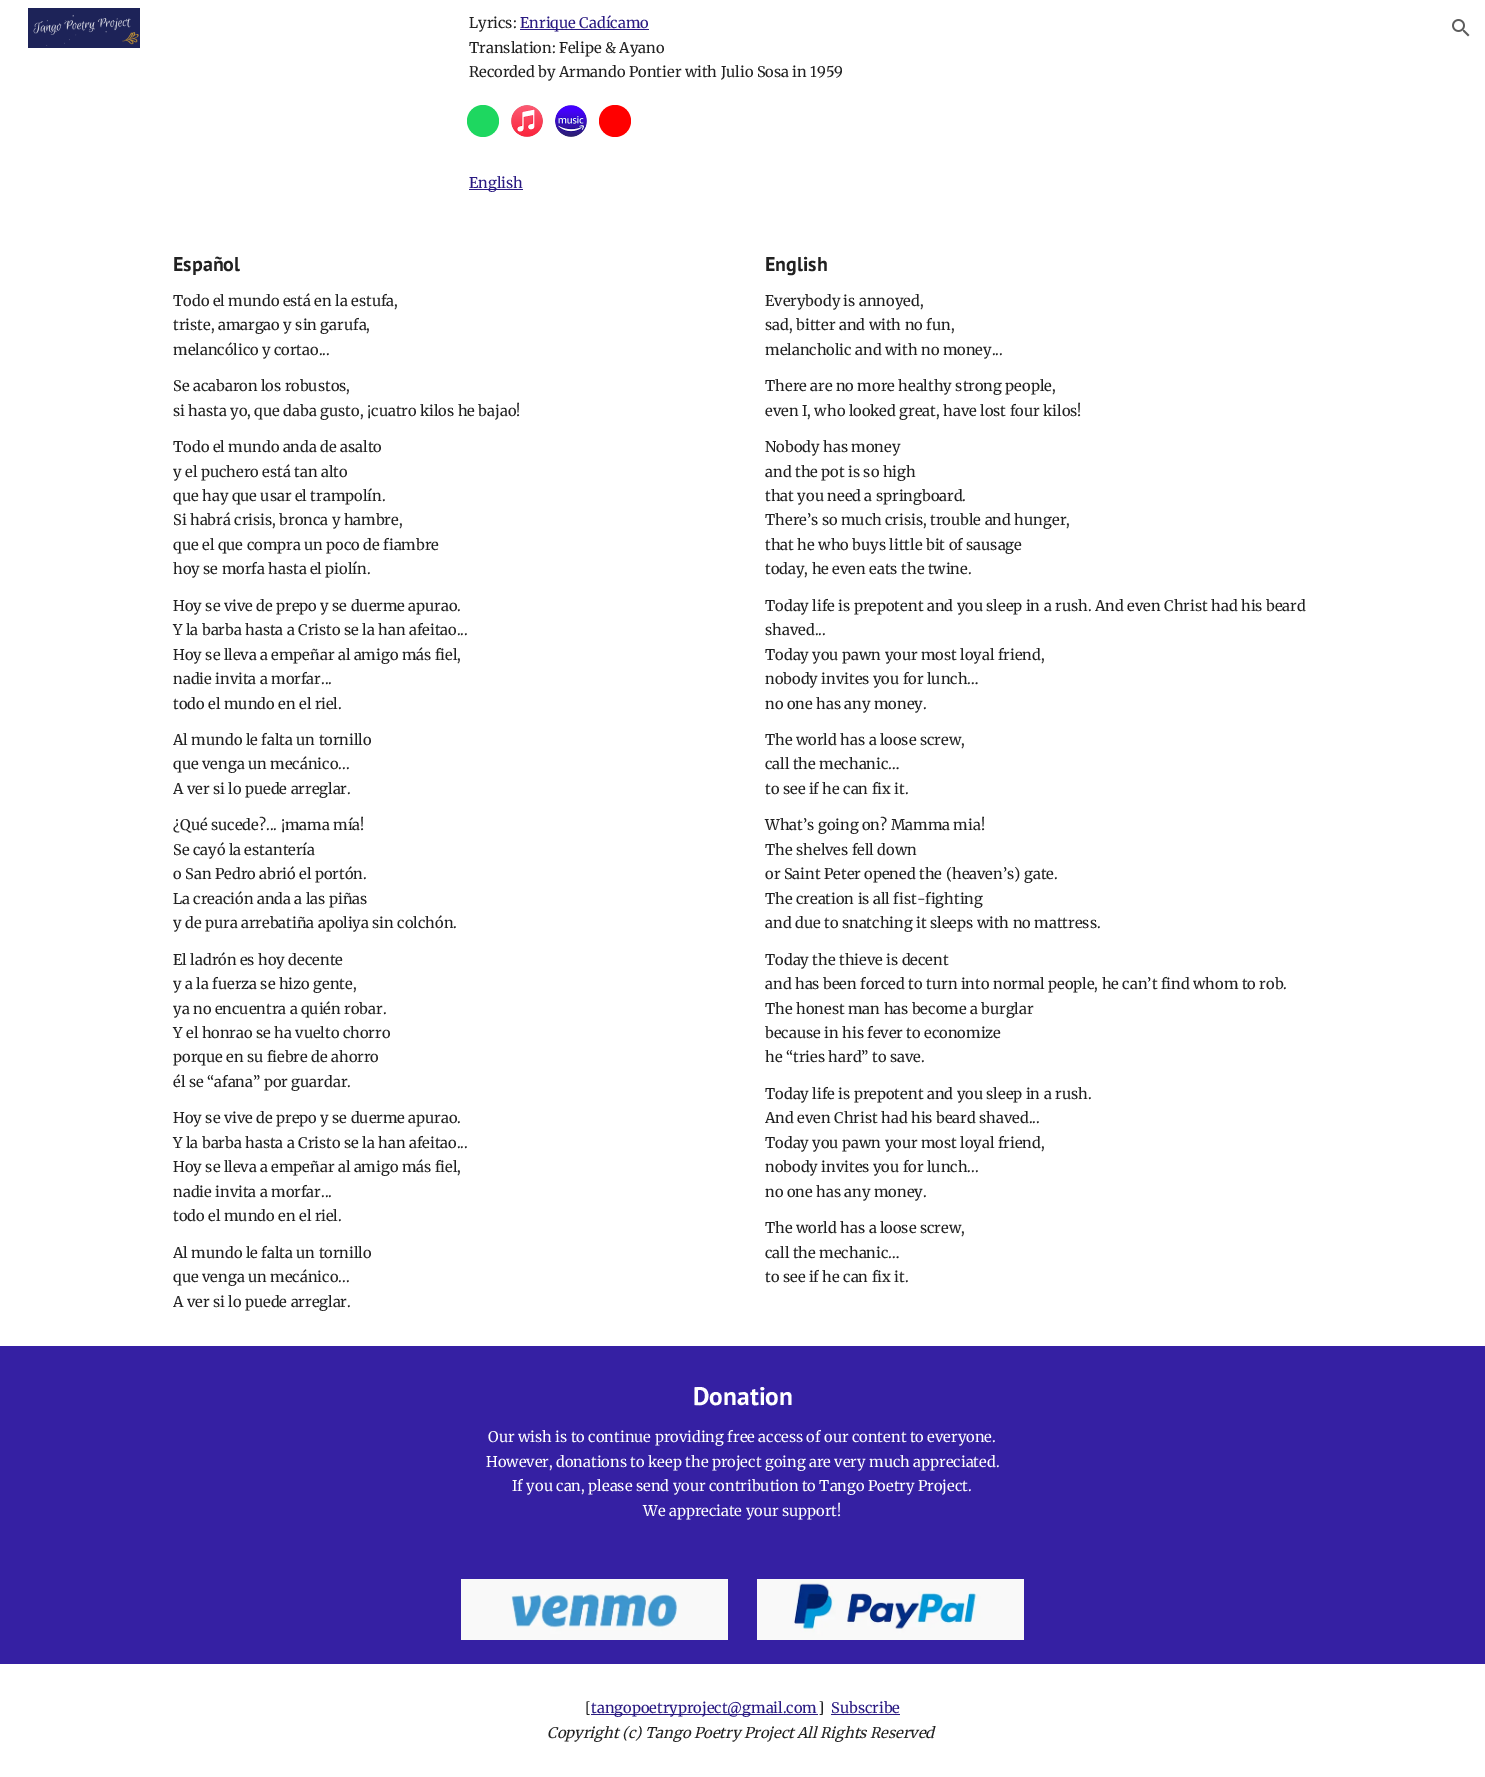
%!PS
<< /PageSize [1485 1777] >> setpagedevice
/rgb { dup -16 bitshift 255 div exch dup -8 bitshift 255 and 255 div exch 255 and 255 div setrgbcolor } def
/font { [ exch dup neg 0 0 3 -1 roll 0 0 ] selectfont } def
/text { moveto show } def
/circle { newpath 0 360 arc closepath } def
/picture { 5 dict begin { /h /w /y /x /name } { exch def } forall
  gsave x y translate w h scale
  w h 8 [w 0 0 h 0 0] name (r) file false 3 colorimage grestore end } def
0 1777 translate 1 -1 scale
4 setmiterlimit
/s1 { /Merriweather-Regular 14.65 font 16#212121 rgb } def
/s2 { /Merriweather-Regular 14.65 font 16#2A1A82 rgb } def
/s3 { /PTSans-Bold 20 font 16#212121 rgb } def
/s4 { /PTSans-Bold 25.5 font 16#FFFFFF rgb } def
/s5 { /Merriweather-Regular 14.65 font 16#FFFFFF rgb } def
/s6 { /Merriweather-Italic 14.65 font 16#212121 rgb } def
16#FFFFFF rgb
0 0 1485 1777 rectfill
(pic1.raw) 28 8 112 40 picture
(pic2.raw) 1452 19 18 18 picture
s1
(Lyrics:) 469 28 text
16#2A1A82 rgb
520 29 129 1 rectfill
(Enrique Cadícamo) 520 28 text
s1
(Translation: Felipe & Ayano) 469 53 text
(Recorded by Armando Pontier with Julio Sosa in 1959) 469 77 text
16#1ED760 rgb
483 121 16 circle fill
(pic3.raw) 511 105 32 32 picture
(pic4.raw) 555 105 32 32 picture
16#FF0000 rgb
615 121 16 circle fill
16#2A1A82 rgb
469 189 54 1 rectfill
(English) 469 188 text
s3
(Español) 173 271 text
s1
(Todo el mundo está en la estufa,) 173 306 text
(triste, amargao y sin garufa,) 173 330 text
(melancólico y cortao...) 173 355 text
(Se acabaron los robustos,) 173 391 text
(si hasta yo, que daba gusto, ¡cuatro kilos he bajao!) 173 416 text
(Todo el mundo anda de asalto) 173 452 text
(y el puchero está tan alto) 173 477 text
(que hay que usar el trampolín.) 173 501 text
(Si habrá crisis, bronca y hambre,) 173 525 text
(que el que compra un poco de fiambre) 173 550 text
(hoy se morfa hasta el piolín.) 173 574 text
(Hoy se vive de prepo y se duerme apurao.) 173 611 text
(Y la barba hasta a Cristo se la han afeitao...) 173 635 text
(Hoy se lleva a empeñar al amigo más fiel,) 173 660 text
(nadie invita a morfar...) 173 684 text
(todo el mundo en el riel.) 173 709 text
(Al mundo le falta un tornillo) 173 745 text
(que venga un mecánico...) 173 769 text
(A ver si lo puede arreglar.) 173 794 text
(¿Qué sucede?... ¡mama mía!) 173 830 text
(Se cayó la estantería) 173 855 text
(o San Pedro abrió el portón.) 173 879 text
(La creación anda a las piñas) 173 904 text
(y de pura arrebatiña apoliya sin colchón.) 173 928 text
(El ladrón es hoy decente) 173 965 text
(y a la fuerza se hizo gente,) 173 989 text
(ya no encuentra a quién robar.) 173 1014 text
(Y el honrao se ha vuelto chorro) 173 1038 text
(porque en su fiebre de ahorro) 173 1062 text
(él se “afana” por guardar.) 173 1087 text
(Hoy se vive de prepo y se duerme apurao.) 173 1123 text
(Y la barba hasta a Cristo se la han afeitao...) 173 1148 text
(Hoy se lleva a empeñar al amigo más fiel,) 173 1172 text
(nadie invita a morfar...) 173 1197 text
(todo el mundo en el riel.) 173 1221 text
(Al mundo le falta un tornillo) 173 1258 text
(que venga un mecánico...) 173 1282 text
(A ver si lo puede arreglar.) 173 1307 text
s3
(English) 765 271 text
s1
(Everybody is annoyed,) 765 306 text
(sad, bitter and with no fun,) 765 330 text
(melancholic and with no money...) 765 355 text
(There are no more healthy strong people,) 765 391 text
(even I, who looked great, have lost four kilos!) 765 416 text
(Nobody has money) 765 452 text
(and the pot is so high) 765 477 text
(that you need a springboard.) 765 501 text
(There’s so much crisis, trouble and hunger,) 765 525 text
(that he who buys little bit of sausage) 765 550 text
(today, he even eats the twine.) 765 574 text
(Today life is prepotent and you sleep in a rush. And even Christ had his beard) 765 611 text
(shaved...) 765 635 text
(Today you pawn your most loyal friend,) 765 660 text
(nobody invites you for lunch…) 765 684 text
(no one has any money.) 765 709 text
(The world has a loose screw,) 765 745 text
(call the mechanic…) 765 769 text
(to see if he can fix it.) 765 794 text
(What’s going on? Mamma mia!) 765 830 text
(The shelves fell down) 765 855 text
(or Saint Peter opened the \(heaven’s\) gate.) 765 879 text
(The creation is all fist-fighting) 765 904 text
(and due to snatching it sleeps with no mattress.) 765 928 text
(Today the thieve is decent) 765 965 text
(and has been forced to turn into normal people, he can’t find whom to rob.) 765 989 text
(The honest man has become a burglar) 765 1014 text
(because in his fever to economize) 765 1038 text
(he “tries hard” to save.) 765 1062 text
(Today life is prepotent and you sleep in a rush.) 765 1099 text
(And even Christ had his beard shaved...) 765 1123 text
(Today you pawn your most loyal friend,) 765 1148 text
(nobody invites you for lunch...) 765 1172 text
(no one has any money.) 765 1197 text
(The world has a loose screw,) 765 1233 text
(call the mechanic…) 765 1258 text
(to see if he can fix it.) 765 1282 text
16#3520A3 rgb
0 1346 1485 318 rectfill
s4
(Donation) 693 1405 text
s5
(Our wish is to continue providing free access of our content to everyone.) 488 1442 text
(However, donations to keep the project going are very much appreciated.) 486 1467 text
(If you can, please send your contribution to Tango Poetry Project.) 512 1491 text
(We appreciate your support!) 643 1516 text
(pic5.raw) 461 1579 267 61 picture
(pic6.raw) 757 1579 267 61 picture
s1
([) 585 1713 text
16#2A1A82 rgb
591 1714 227 1 rectfill
(tangopoetryproject@gmail.com) 591 1713 text
s1
(]) 818 1713 text
s2
(Subscribe) 831 1713 text
831 1714 69 1 rectfill
s6
(Copyright \(c\) Tango Poetry Project All Rights Reserved) 547 1738 text
showpage
